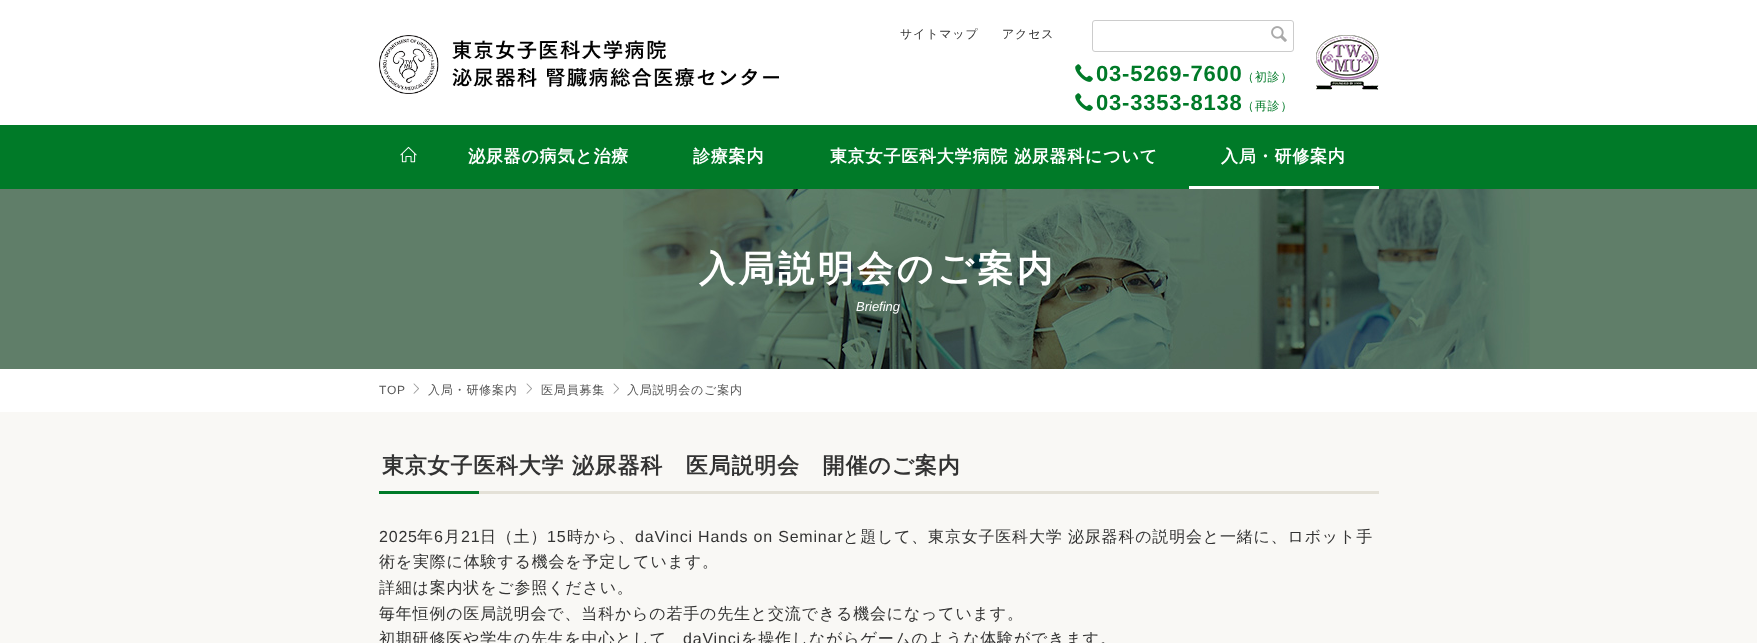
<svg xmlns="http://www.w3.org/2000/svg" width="1757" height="643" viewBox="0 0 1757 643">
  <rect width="100%" height="100%" fill="#f9f8f5"/>
  <path d="M0 0h1757v125H0z" fill="#fff"/>
  <rect x="1092.5" y="20.5" width="201" height="31" rx="2.5" fill="none" stroke="#ccc"/>
  <image x="1271" y="26" width="16" height="16" href="img/1.png"/>
  <image x="379" y="35" width="400" height="59" href="img/2.png"/>
  <image x="1075" y="64" width="18" height="18" href="img/3.png"/>
  <image x="1075" y="93" width="18" height="18" href="img/3.png"/>
  <image x="1316" y="35" width="63" height="55" href="img/4.png"/>
  <path d="M0 125h1757v64H0z" fill="#007a28"/>
  <image x="400" y="146" width="17" height="17" href="img/5.png"/>
  <path d="M1189 186h190v3H1189z" fill="#fff"/>
  <path d="M0 189h1757v180H0z" fill="#607e69"/>
  <image x="623" y="189" width="907" height="180" href="img/6.png"/>
  <path d="M0 369h1757v43H0z" fill="#fff"/>
  <image x="413" y="383" width="6" height="11" href="img/7.png"/>
  <image x="526" y="383" width="6" height="11" href="img/7.png"/>
  <image x="613" y="383" width="6" height="11" href="img/7.png"/>
  <path d="M479 491h900v3H479z" fill="#e4e1d7"/>
  <path d="M379 491h100v3H379z" fill="#007a28"/>
  <g font-family="WenQuanYi Zen Hei" font-size="12" font-weight="500" letter-spacing="0.8" fill="#333">
    <text x="900" y="38">サイトマップ</text>
    <text x="1002" y="38">アクセス</text>
  </g>
  <text x="1096" y="81" font-family="Liberation Sans" font-size="22" font-weight="bold" letter-spacing="0.8" fill="#007a28">03-5269-7600</text>
  <text x="1242" y="81" font-family="WenQuanYi Zen Hei" font-size="12" font-weight="500" letter-spacing="0.8" fill="#007a28">（初診）</text>
  <text x="1096" y="110" font-family="Liberation Sans" font-size="22" font-weight="bold" letter-spacing="0.8" fill="#007a28">03-3353-8138</text>
  <text x="1242" y="110" font-family="WenQuanYi Zen Hei" font-size="12" font-weight="500" letter-spacing="0.8" fill="#007a28">（再診）</text>
  <g font-family="WenQuanYi Zen Hei" font-size="17" font-weight="bold" letter-spacing="0.8" fill="#fff">
    <text x="468" y="162">泌尿器の病気と治療</text>
    <text x="693" y="162">診療案内</text>
    <text x="830" y="162">東京女子医科大学病院 泌尿器科について</text>
    <text x="1221" y="162">入局・研修案内</text>
  </g>
  <text x="699" y="281" font-family="WenQuanYi Zen Hei" font-size="36" font-weight="bold" letter-spacing="3.5" fill="#fff">入局説明会のご案内</text>
  <text x="856" y="311" font-family="Liberation Sans" font-size="13" font-style="italic" fill="#fff">Briefing</text>
  <text x="379" y="394" font-family="Liberation Sans" font-size="12" letter-spacing="0.8" fill="#555">TOP</text>
  <g font-family="WenQuanYi Zen Hei" font-size="12" font-weight="500" letter-spacing="0.8" fill="#555">
    <text x="428" y="394">入局・研修案内</text>
    <text x="541" y="394">医局員募集</text>
    <text x="627" y="394">入局説明会のご案内</text>
  </g>
  <text x="382" y="473" font-family="WenQuanYi Zen Hei" font-size="22" font-weight="bold" letter-spacing="0.8" fill="#333">東京女子医科大学 泌尿器科　医局説明会　開催のご案内</text>
  <text x="379" y="542" font-family="Liberation Sans" font-size="16" letter-spacing="0.8" fill="#333">2025</text>
  <text x="417" y="542" font-family="WenQuanYi Zen Hei" font-size="16" font-weight="500" letter-spacing="0.8" fill="#333">年</text>
  <text x="434" y="542" font-family="Liberation Sans" font-size="16" letter-spacing="0.8" fill="#333">6</text>
  <text x="444" y="542" font-family="WenQuanYi Zen Hei" font-size="16" font-weight="500" letter-spacing="0.8" fill="#333">月</text>
  <text x="461" y="542" font-family="Liberation Sans" font-size="16" letter-spacing="0.8" fill="#333">21</text>
  <text x="480" y="542" font-family="WenQuanYi Zen Hei" font-size="16" font-weight="500" letter-spacing="0.8" fill="#333">日（土）</text>
  <text x="547" y="542" font-family="Liberation Sans" font-size="16" letter-spacing="0.8" fill="#333">15</text>
  <text x="567" y="542" font-family="WenQuanYi Zen Hei" font-size="16" font-weight="500" letter-spacing="0.8" fill="#333">時から、</text>
  <text x="635" y="542" font-family="Liberation Sans" font-size="16" letter-spacing="0.8" fill="#333">daVinci Hands on Seminar</text>
  <g font-family="WenQuanYi Zen Hei" font-size="16" font-weight="500" letter-spacing="0.8" fill="#333">
    <text x="843" y="542">と題して、東京女子医科大学</text>
    <text x="1068" y="542">泌尿器科の説明会と一緒に、ロボット手</text>
    <text x="379" y="567">術を実際に体験する機会を予定しています。</text>
    <text x="379" y="593">詳細は案内状をご参照ください。</text>
    <text x="379" y="619">毎年恒例の医局説明会で、当科からの若手の先生と交流できる機会になっています。</text>
    <text x="379" y="644">初期研修医や学生の先生を中心として</text>
  </g>
  <text x="683" y="644" font-family="Liberation Sans" font-size="16" letter-spacing="0.8" fill="#333">daVinci</text>
  <text x="741" y="644" font-family="WenQuanYi Zen Hei" font-size="16" font-weight="500" letter-spacing="0.8" fill="#333">を操作しながらゲームのような体験ができます。</text>
</svg>
